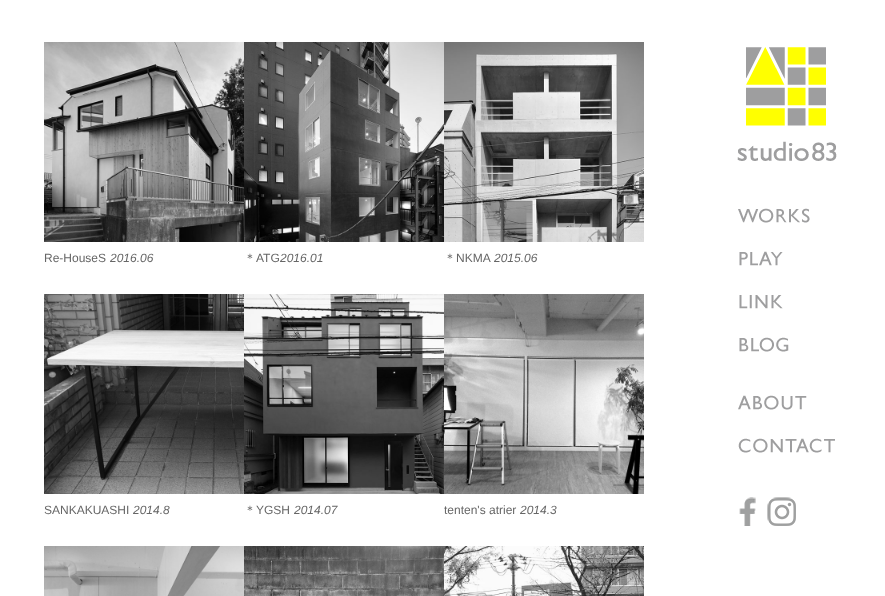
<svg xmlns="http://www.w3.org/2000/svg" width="885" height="596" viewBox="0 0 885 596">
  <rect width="100%" height="100%" fill="#fff"/>
  <image x="44" y="42" width="200" height="200" href="img/1.png"/>
  <image x="244" y="42" width="200" height="200" href="img/2.png"/>
  <image x="444" y="42" width="200" height="200" href="img/3.png"/>
  <image x="44" y="294" width="200" height="200" href="img/4.png"/>
  <image x="244" y="294" width="200" height="200" href="img/5.png"/>
  <image x="444" y="294" width="200" height="200" href="img/6.png"/>
  <image x="44" y="546" width="200" height="50" href="img/7.png"/>
  <image x="244" y="546" width="200" height="50" href="img/8.png"/>
  <image x="444" y="546" width="200" height="50" href="img/9.png"/>
  <image x="737" y="47" width="100" height="114" href="img/10.png"/>
  <image x="738" y="208" width="72" height="15" href="img/11.png"/>
  <image x="739" y="251" width="44" height="15" href="img/12.png"/>
  <image x="739" y="295" width="44" height="14" href="img/13.png"/>
  <image x="739" y="337" width="50" height="15" href="img/14.png"/>
  <image x="738" y="395" width="69" height="15" href="img/15.png"/>
  <image x="738" y="438" width="97" height="15" href="img/16.png"/>
  <image x="739" y="497" width="17" height="29" href="img/17.png"/>
  <image x="767" y="497" width="29" height="29" href="img/18.png"/>
  <text x="44" y="262" font-family="Liberation Sans" font-size="12" fill="#666">Re-HouseS</text>
  <text x="110" y="262" font-family="Liberation Sans" font-size="12" font-style="italic" fill="#666">2016.06</text>
  <text x="244" y="262" font-family="WenQuanYi Zen Hei" font-size="12" font-weight="500" fill="#666">＊</text>
  <text x="256" y="262" font-family="Liberation Sans" font-size="12" fill="#666">ATG</text>
  <text x="280" y="262" font-family="Liberation Sans" font-size="12" font-style="italic" fill="#666">2016.01</text>
  <text x="444" y="262" font-family="WenQuanYi Zen Hei" font-size="12" font-weight="500" fill="#666">＊</text>
  <text x="456" y="262" font-family="Liberation Sans" font-size="12" fill="#666">NKMA</text>
  <text x="494" y="262" font-family="Liberation Sans" font-size="12" font-style="italic" fill="#666">2015.06</text>
  <text x="44" y="514" font-family="Liberation Sans" font-size="12" fill="#666">SANKAKUASHI</text>
  <text x="133" y="514" font-family="Liberation Sans" font-size="12" font-style="italic" fill="#666">2014.8</text>
  <text x="244" y="514" font-family="WenQuanYi Zen Hei" font-size="12" font-weight="500" fill="#666">＊</text>
  <text x="256" y="514" font-family="Liberation Sans" font-size="12" fill="#666">YGSH</text>
  <text x="294" y="514" font-family="Liberation Sans" font-size="12" font-style="italic" fill="#666">2014.07</text>
  <text x="444" y="514" font-family="Liberation Sans" font-size="12" fill="#666">tenten's atrier</text>
  <text x="520" y="514" font-family="Liberation Sans" font-size="12" font-style="italic" fill="#666">2014.3</text>
  <g font-family="Liberation Serif" font-size="12" fill="#666">
    <text x="449" y="582">i</text>
    <text x="464" y="582">3</text>
  </g>
</svg>
